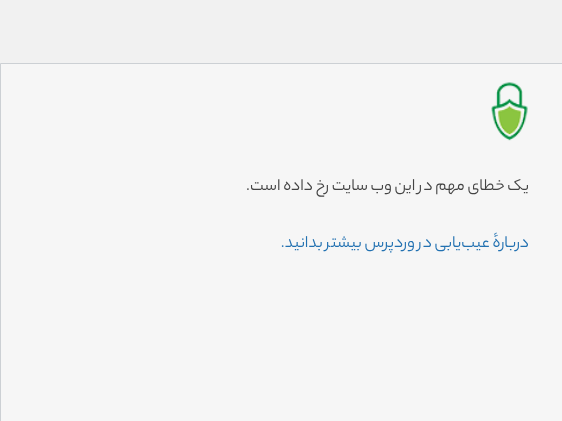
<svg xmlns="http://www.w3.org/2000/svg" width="562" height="421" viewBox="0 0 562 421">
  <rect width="100%" height="100%" fill="#f1f1f1"/>
  <path d="M0.5 63.5h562v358H0.5z" fill="#f6f6f6" stroke="#ccd0d4"/>
  <image x="491" y="82" width="37" height="59" href="img/1.png"/>
  <text x="529" y="190" font-family="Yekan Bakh" font-size="17.5" direction="rtl" fill="#444">یک خطای مهم در این وب سایت رخ داده است.</text>
  <text x="529" y="247" font-family="Yekan Bakh" font-size="17.5" direction="rtl" fill="#2271b1">دربارهٔ عیب‌یابی در وردپرس بیشتر بدانید.</text>
</svg>
